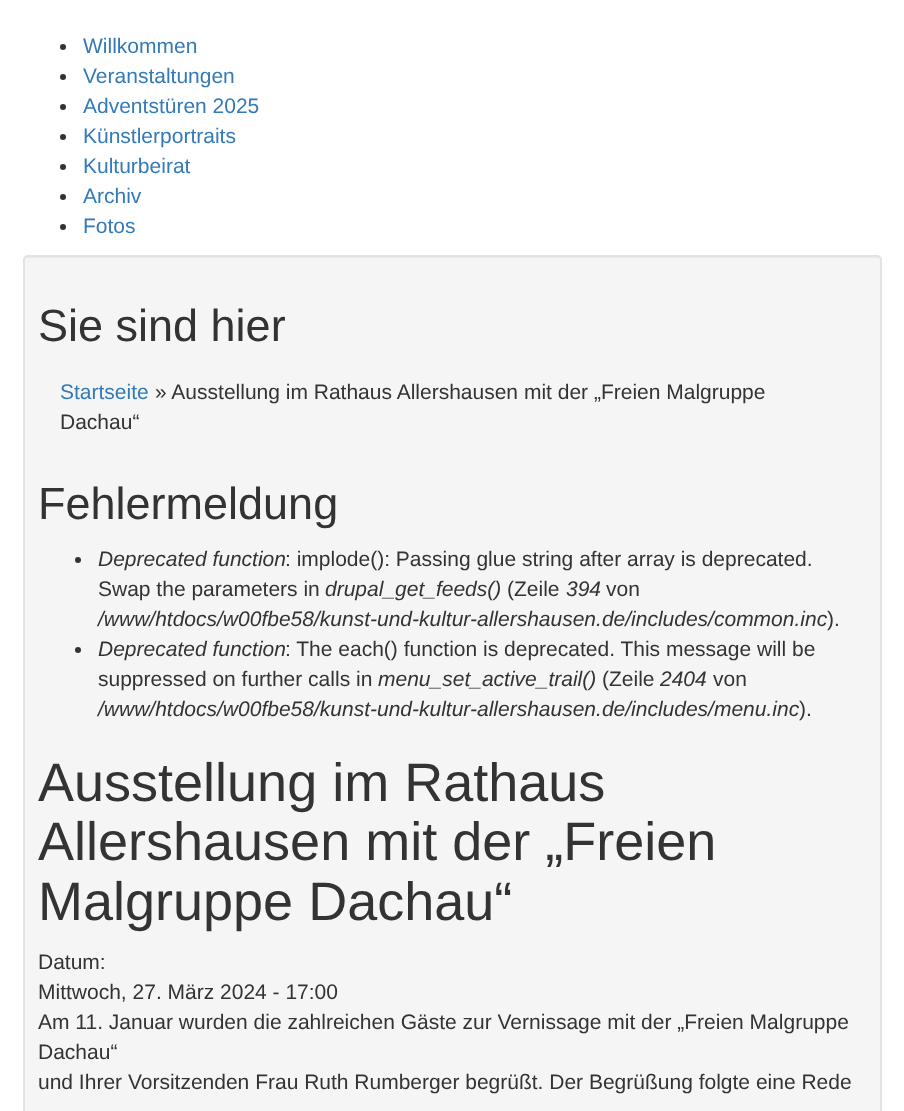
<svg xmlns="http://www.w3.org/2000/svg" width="904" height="1111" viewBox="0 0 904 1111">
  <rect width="100%" height="100%" fill="#fff"/>
  <circle cx="63" cy="47" r="3" fill="#333"/>
  <circle cx="63" cy="77" r="3" fill="#333"/>
  <circle cx="63" cy="107" r="3" fill="#333"/>
  <circle cx="63" cy="137" r="3" fill="#333"/>
  <circle cx="63" cy="167" r="3" fill="#333"/>
  <circle cx="63" cy="197" r="3" fill="#333"/>
  <circle cx="63" cy="227" r="3" fill="#333"/>
  <rect x="23" y="255" width="859" height="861" rx="5" fill="#f5f5f5"/>
  <path d="M27 258H878C879 258 880 259 880 261V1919C881 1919 881 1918 881 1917V260C881 258 880 257 878 257H27C25 257 24 258 24 260V261C24 259 25 258 27 258Z" fill="#e9e9e9"/>
  <rect x="24" y="256" width="857" height="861" rx="4" fill="none" stroke="#e3e3e3" stroke-width="2"/>
  <circle cx="78" cy="560" r="3" fill="#333"/>
  <circle cx="78" cy="650" r="3" fill="#333"/>
  <g font-family="Liberation Sans" font-size="21" fill="#337ab7">
    <text x="83" y="53">Willkommen</text>
    <text x="83" y="83">Veranstaltungen</text>
    <text x="83" y="113">Adventstüren 2025</text>
    <text x="83" y="143">Künstlerportraits</text>
    <text x="83" y="173">Kulturbeirat</text>
    <text x="83" y="203">Archiv</text>
    <text x="83" y="233">Fotos</text>
  </g>
  <text x="38" y="341" font-family="Liberation Sans" font-size="45" fill="#333">Sie sind hier</text>
  <text x="60" y="399" font-family="Liberation Sans" font-size="21" fill="#337ab7">Startseite</text>
  <g font-family="Liberation Sans" font-size="21" fill="#333">
    <text x="155" y="399">» Ausstellung im Rathaus Allershausen mit der „Freien Malgruppe</text>
    <text x="60" y="429">Dachau“</text>
  </g>
  <text x="38" y="519" font-family="Liberation Sans" font-size="45" fill="#333">Fehlermeldung</text>
  <text x="98" y="566" font-family="Liberation Sans" font-size="21" font-style="italic" fill="#333">Deprecated function</text>
  <g font-family="Liberation Sans" font-size="21" fill="#333">
    <text x="285" y="566">: implode(): Passing glue string after array is deprecated.</text>
    <text x="98" y="596">Swap the parameters in</text>
  </g>
  <text x="325" y="596" font-family="Liberation Sans" font-size="21" font-style="italic" fill="#333">drupal_get_feeds()</text>
  <text x="507" y="596" font-family="Liberation Sans" font-size="21" fill="#333">(Zeile</text>
  <text x="566" y="596" font-family="Liberation Sans" font-size="21" font-style="italic" fill="#333">394</text>
  <text x="606" y="596" font-family="Liberation Sans" font-size="21" fill="#333">von</text>
  <text x="98" y="626" font-family="Liberation Sans" font-size="21" font-style="italic" fill="#333">/www/htdocs/w00fbe58/kunst-und-kultur-allershausen.de/includes/common.inc</text>
  <text x="827" y="626" font-family="Liberation Sans" font-size="21" fill="#333">).</text>
  <text x="98" y="656" font-family="Liberation Sans" font-size="21" font-style="italic" fill="#333">Deprecated function</text>
  <g font-family="Liberation Sans" font-size="21" fill="#333">
    <text x="285" y="656">: The each() function is deprecated. This message will be</text>
    <text x="98" y="686">suppressed on further calls in</text>
  </g>
  <text x="378" y="686" font-family="Liberation Sans" font-size="21" font-style="italic" fill="#333">menu_set_active_trail()</text>
  <text x="602" y="686" font-family="Liberation Sans" font-size="21" fill="#333">(Zeile</text>
  <text x="660" y="686" font-family="Liberation Sans" font-size="21" font-style="italic" fill="#333">2404</text>
  <text x="713" y="686" font-family="Liberation Sans" font-size="21" fill="#333">von</text>
  <text x="98" y="716" font-family="Liberation Sans" font-size="21" font-style="italic" fill="#333">/www/htdocs/w00fbe58/kunst-und-kultur-allershausen.de/includes/menu.inc</text>
  <text x="799" y="716" font-family="Liberation Sans" font-size="21" fill="#333">).</text>
  <g font-family="Liberation Sans" font-size="54" fill="#333">
    <text x="38" y="801">Ausstellung im Rathaus</text>
    <text x="38" y="860">Allershausen mit der „Freien</text>
    <text x="38" y="920">Malgruppe Dachau“</text>
  </g>
  <g font-family="Liberation Sans" font-size="21" fill="#333">
    <text x="38" y="969">Datum:</text>
    <text x="38" y="999">Mittwoch, 27. März 2024 - 17:00</text>
    <text x="38" y="1029">Am 11. Januar wurden die zahlreichen Gäste zur Vernissage mit der „Freien Malgruppe</text>
    <text x="38" y="1059">Dachau“</text>
    <text x="38" y="1089">und Ihrer Vorsitzenden Frau Ruth Rumberger begrüßt. Der Begrüßung folgte eine Rede</text>
  </g>
</svg>
